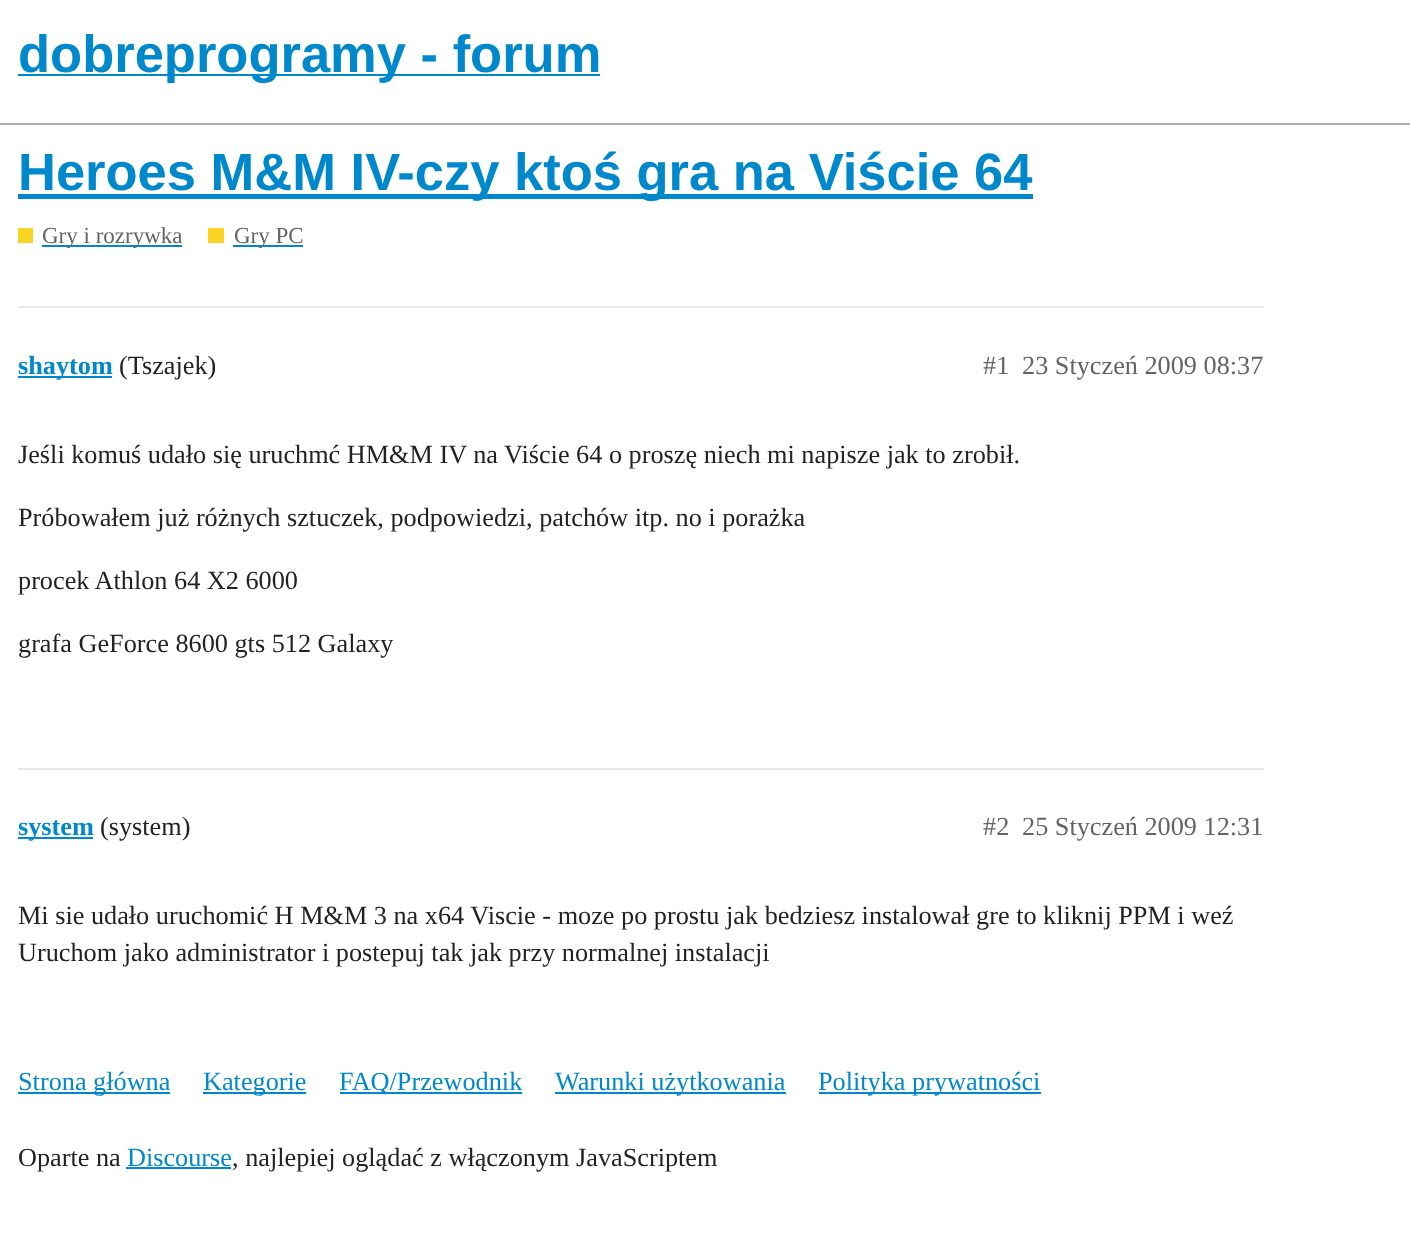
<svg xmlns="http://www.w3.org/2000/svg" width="1410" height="1253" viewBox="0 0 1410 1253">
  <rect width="100%" height="100%" fill="#fff"/>
  <path d="M0 123h1410v2H0z" fill="#afafaf"/>
  <path d="M18 74h582v2H18z" fill="#08c"/>
  <path d="M18 194h1015v5H18z" fill="#08c"/>
  <path d="M18 228h15v15H18z" fill="#f9d423"/>
  <path d="M42 245h140v2H42z" fill="#08c"/>
  <path d="M208 228h16v15H208z" fill="#f9d423"/>
  <path d="M233 245h70v2H233z" fill="#08c"/>
  <path d="M18 306h1246v2H18z" fill="#e9e9e9"/>
  <path d="M18 376h94v2H18z" fill="#08c"/>
  <path d="M18 768h1246v2H18z" fill="#e9e9e9"/>
  <path d="M18 837h75v2H18z" fill="#08c"/>
  <path d="M18 1092h152v2H18z" fill="#08c"/>
  <path d="M203 1092h103v2H203z" fill="#08c"/>
  <path d="M340 1092h182v2H340z" fill="#08c"/>
  <path d="M555 1092h231v2H555z" fill="#08c"/>
  <path d="M819 1092h222v2H819z" fill="#08c"/>
  <path d="M126 1167h105v2H126z" fill="#08c"/>
  <g font-family="Liberation Sans" font-size="52.5" font-weight="bold" fill="#08c">
    <text x="18" y="72">dobreprogramy - forum</text>
    <text x="18" y="190">Heroes M&amp;M IV-czy ktoś gra na Viście 64</text>
  </g>
  <g font-family="Liberation Serif" font-size="23" fill="#646464">
    <text x="42" y="243">Gry i rozrywka</text>
    <text x="234" y="243">Gry PC</text>
  </g>
  <text x="18" y="374" font-family="Liberation Serif" font-size="26.25" font-weight="bold" fill="#08c">shaytom</text>
  <text x="119" y="374" font-family="Liberation Serif" font-size="26.25" fill="#222">(Tszajek)</text>
  <g font-family="Liberation Serif" font-size="26.25" fill="#646464">
    <text x="983" y="374">#1</text>
    <text x="1022" y="374">23 Styczeń 2009 08:37</text>
  </g>
  <g font-family="Liberation Serif" font-size="26.25" fill="#222">
    <text x="18" y="463">Jeśli komuś udało się uruchmć HM&amp;M IV na Viście 64 o proszę niech mi napisze jak to zrobił.</text>
    <text x="18" y="526">Próbowałem już różnych sztuczek, podpowiedzi, patchów itp. no i porażka</text>
    <text x="18" y="589">procek Athlon 64 X2 6000</text>
    <text x="18" y="652">grafa GeForce 8600 gts 512 Galaxy</text>
  </g>
  <text x="18" y="835" font-family="Liberation Serif" font-size="26.25" font-weight="bold" fill="#08c">system</text>
  <text x="100" y="835" font-family="Liberation Serif" font-size="26.25" fill="#222">(system)</text>
  <g font-family="Liberation Serif" font-size="26.25" fill="#646464">
    <text x="983" y="835">#2</text>
    <text x="1022" y="835">25 Styczeń 2009 12:31</text>
  </g>
  <g font-family="Liberation Serif" font-size="26.25" fill="#222">
    <text x="18" y="924">Mi sie udało uruchomić H M&amp;M 3 na x64 Viscie - moze po prostu jak bedziesz instalował gre to kliknij PPM i weź</text>
    <text x="18" y="961">Uruchom jako administrator i postepuj tak jak przy normalnej instalacji</text>
  </g>
  <g font-family="Liberation Serif" font-size="26.25" fill="#08c">
    <text x="18" y="1090">Strona główna</text>
    <text x="203" y="1090">Kategorie</text>
    <text x="339" y="1090">FAQ/Przewodnik</text>
    <text x="555" y="1090">Warunki użytkowania</text>
    <text x="818" y="1090">Polityka prywatności</text>
  </g>
  <text x="18" y="1166" font-family="Liberation Serif" font-size="26.25" fill="#222">Oparte na</text>
  <text x="127" y="1166" font-family="Liberation Serif" font-size="26.25" fill="#08c">Discourse</text>
  <text x="232" y="1166" font-family="Liberation Serif" font-size="26.25" fill="#222">, najlepiej oglądać z włączonym JavaScriptem</text>
</svg>
